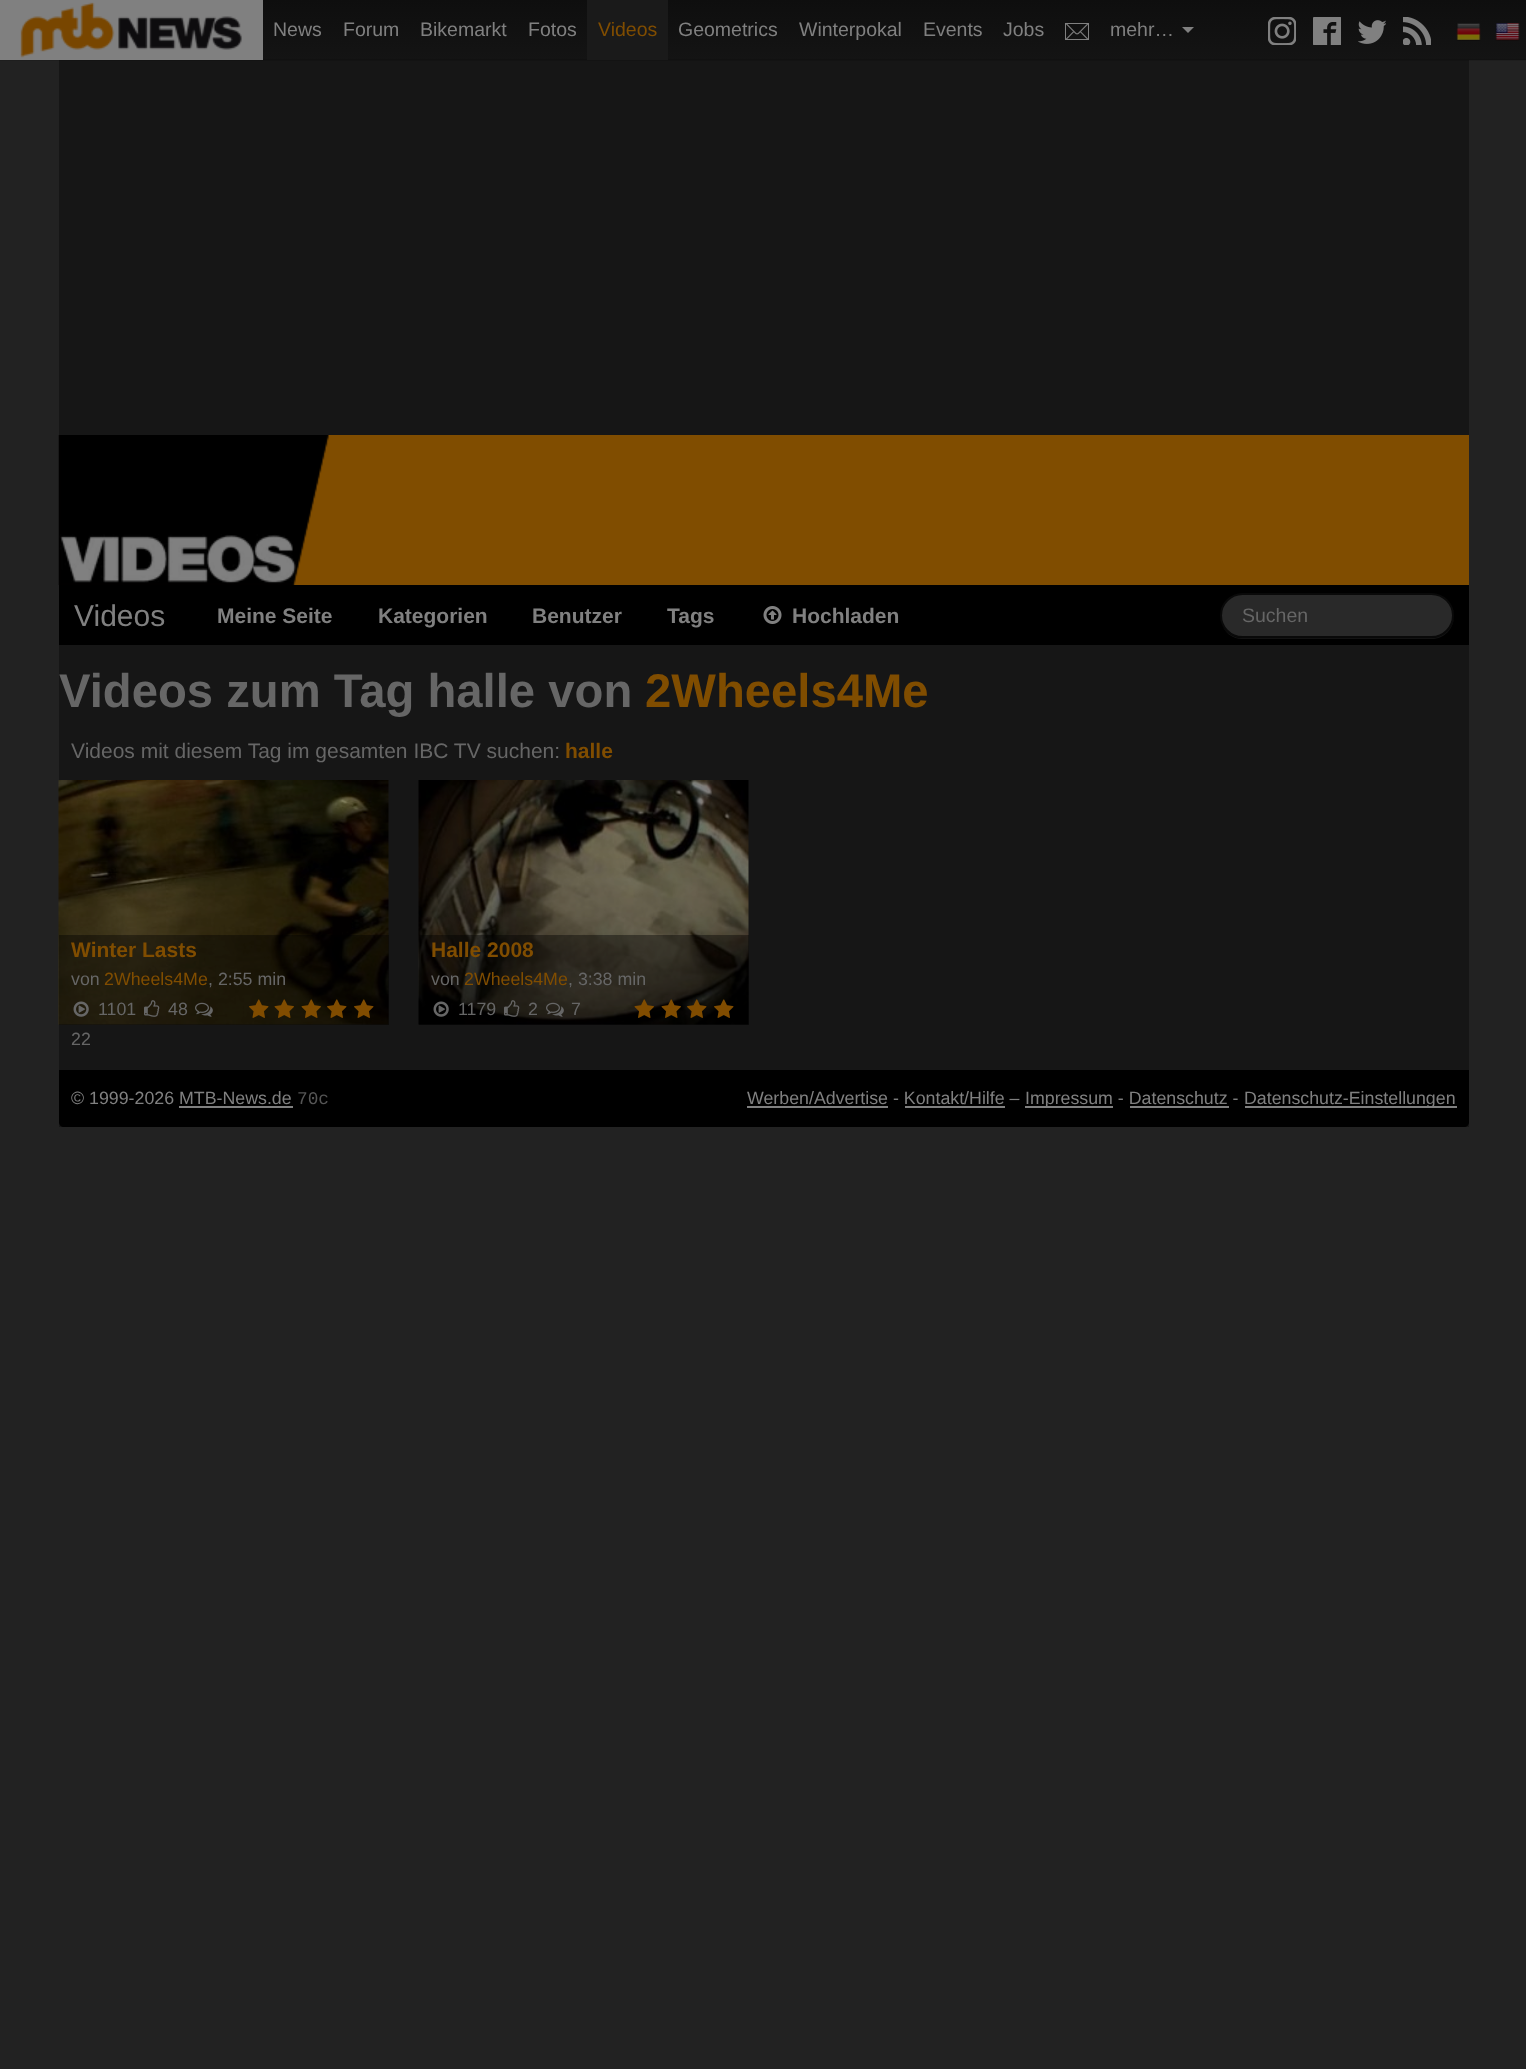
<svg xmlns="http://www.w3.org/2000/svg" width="1526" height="2069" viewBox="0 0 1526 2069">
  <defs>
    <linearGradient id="g1" gradientUnits="userSpaceOnUse" x1="764" y1="0" x2="764" y2="60"><stop offset="0" stop-color="#0e0e0e"/><stop offset="1" stop-color="#141414"/></linearGradient>
  </defs>
  <rect width="100%" height="100%" fill="#222"/>
  <path d="M263 0h1263v60H263z" fill="url(#g1)"/>
  <path d="M59 60h1410v1067H59z" fill="#161616"/>
  <path d="M0 59h1526v2H0z" fill="#0000001a"/>
  <path d="M0 0h263v60H0z" fill="#808080"/>
  <image x="20" y="2" width="222" height="56" href="img/1.png"/>
  <path d="M587 0h81v60H587z" fill="#1a1a1a"/>
  <image x="1065" y="23" width="24" height="17" href="img/2.png"/>
  <path d="M1182 27H1194L1188 33Z" fill="#808080"/>
  <image x="1268" y="17" width="28" height="28" href="img/3.png"/>
  <image x="1313" y="17" width="28" height="28" href="img/4.png"/>
  <image x="1358" y="20" width="28" height="24" href="img/5.png"/>
  <image x="1403" y="17" width="28" height="28" href="img/6.png"/>
  <image x="1456" y="23" width="25" height="18" href="img/7.png"/>
  <image x="1495" y="23" width="25" height="18" href="img/8.png"/>
  <path d="M59 435h1410v150H59z" fill="#804d00"/>
  <image x="58" y="435" width="271" height="150" href="img/9.png"/>
  <path d="M59 585h1410v60H59z" fill="#000"/>
  <image x="763" y="606" width="19" height="18" href="img/10.png"/>
  <path d="M1221 623C1224 632 1232 639 1242 639H1432C1444 639 1454 629 1454 616C1454 614 1454 611 1453 609L1454 615C1454 627 1443 638 1431 638H1242C1232 638 1224 631 1221 623Z" fill="#131313"/>
  <rect x="1221" y="594" width="232" height="43" rx="21.5" fill="#292929" stroke="#090909" stroke-width="2"/>
  <image x="58" y="780" width="331" height="245" href="img/11.png"/>
  <path d="M59 935h330v90H59z" fill="#00000066"/>
  <image x="73" y="1001" width="16" height="16" href="img/12.png"/>
  <image x="144" y="1000" width="16" height="17" href="img/13.png"/>
  <image x="195" y="1002" width="18" height="15" href="img/14.png"/>
  <image x="249" y="999" width="20" height="19" href="img/15.png"/>
  <image x="274" y="999" width="20" height="19" href="img/16.png"/>
  <image x="301" y="999" width="20" height="19" href="img/17.png"/>
  <image x="327" y="999" width="20" height="19" href="img/18.png"/>
  <image x="354" y="999" width="20" height="19" href="img/19.png"/>
  <image x="418" y="780" width="331" height="245" href="img/20.png"/>
  <path d="M419 935h330v90H419z" fill="#00000066"/>
  <image x="433" y="1001" width="16" height="16" href="img/21.png"/>
  <image x="504" y="1000" width="16" height="17" href="img/22.png"/>
  <image x="546" y="1002" width="18" height="15" href="img/23.png"/>
  <image x="634" y="999" width="20" height="19" href="img/24.png"/>
  <image x="661" y="999" width="20" height="19" href="img/25.png"/>
  <image x="687" y="999" width="20" height="19" href="img/26.png"/>
  <image x="714" y="999" width="20" height="19" href="img/27.png"/>
  <path d="M59 1070H1469V1122C1469 1125 1467 1127 1464 1127H64C61 1127 59 1125 59 1122Z" fill="#000"/>
  <path d="M179 1106h114v2H179z" fill="#808080"/>
  <path d="M747 1106h141v2H747z" fill="#808080"/>
  <path d="M1025 1106h88v2H1025z" fill="#808080"/>
  <path d="M1245 1106h212v2H1245z" fill="#808080"/>
  <path d="M905 1106h100v2H905z" fill="#808080"/>
  <path d="M1130 1106h99v2H1130z" fill="#808080"/>
  <g font-family="Liberation Sans" font-size="19.5" fill="#808080">
    <text x="273" y="36">News</text>
    <text x="343" y="36">Forum</text>
    <text x="420" y="36">Bikemarkt</text>
    <text x="528" y="36">Fotos</text>
  </g>
  <text x="598" y="36" font-family="Liberation Sans" font-size="19.5" fill="#804d00">Videos</text>
  <g font-family="Liberation Sans" font-size="19.5" fill="#808080">
    <text x="678" y="36">Geometrics</text>
    <text x="799" y="36">Winterpokal</text>
    <text x="923" y="36">Events</text>
    <text x="1003" y="36">Jobs</text>
    <text x="1110" y="36">mehr…</text>
  </g>
  <text x="74" y="626" font-family="Liberation Sans" font-size="30" fill="#808080">Videos</text>
  <g font-family="Liberation Sans" font-size="21" font-weight="bold" fill="#808080">
    <text x="217" y="623">Meine Seite</text>
    <text x="378" y="623">Kategorien</text>
    <text x="532" y="623">Benutzer</text>
    <text x="667" y="623">Tags</text>
    <text x="792" y="623">Hochladen</text>
  </g>
  <text x="1242" y="622" font-family="Liberation Sans" font-size="19.5" fill="#666">Suchen</text>
  <text x="59" y="707" font-family="Liberation Sans" font-size="47.25" font-weight="bold" fill="#666">Videos zum Tag halle von</text>
  <text x="645" y="707" font-family="Liberation Sans" font-size="47.25" font-weight="bold" fill="#804d00">2Wheels4Me</text>
  <text x="71" y="758" font-family="Liberation Sans" font-size="21" fill="#666">Videos mit diesem Tag im gesamten IBC TV suchen:</text>
  <g font-family="Liberation Sans" font-size="21" font-weight="bold" fill="#804d00">
    <text x="565" y="758">halle</text>
    <text x="71" y="957">Winter Lasts</text>
  </g>
  <text x="71" y="985" font-family="Liberation Sans" font-size="17.8" fill="#666">von</text>
  <text x="104" y="985" font-family="Liberation Sans" font-size="17.8" fill="#804d00">2Wheels4Me</text>
  <g font-family="Liberation Sans" font-size="17.8" fill="#666">
    <text x="208" y="985">, 2:55 min</text>
    <text x="98" y="1015">1101</text>
    <text x="168" y="1015">48</text>
    <text x="71" y="1045">22</text>
  </g>
  <text x="431" y="957" font-family="Liberation Sans" font-size="21" font-weight="bold" fill="#804d00">Halle 2008</text>
  <text x="431" y="985" font-family="Liberation Sans" font-size="17.8" fill="#666">von</text>
  <text x="464" y="985" font-family="Liberation Sans" font-size="17.8" fill="#804d00">2Wheels4Me</text>
  <g font-family="Liberation Sans" font-size="17.8" fill="#666">
    <text x="568" y="985">, 3:38 min</text>
    <text x="458" y="1015">1179</text>
    <text x="528" y="1015">2</text>
    <text x="571" y="1015">7</text>
  </g>
  <text x="71" y="1104" font-family="Liberation Sans" font-size="17.8" fill="#808080">© 1999-2026 MTB-News.de</text>
  <text x="297" y="1104" font-family="Liberation Mono" font-size="17.8" fill="#555">70c</text>
  <g font-family="Liberation Sans" font-size="17.8" fill="#808080">
    <text x="747" y="1104">Werben/Advertise - Kontakt/Hilfe –</text>
    <text x="1025" y="1104">Impressum - Datenschutz -</text>
    <text x="1244" y="1104">Datenschutz-Einstellungen</text>
  </g>
</svg>
